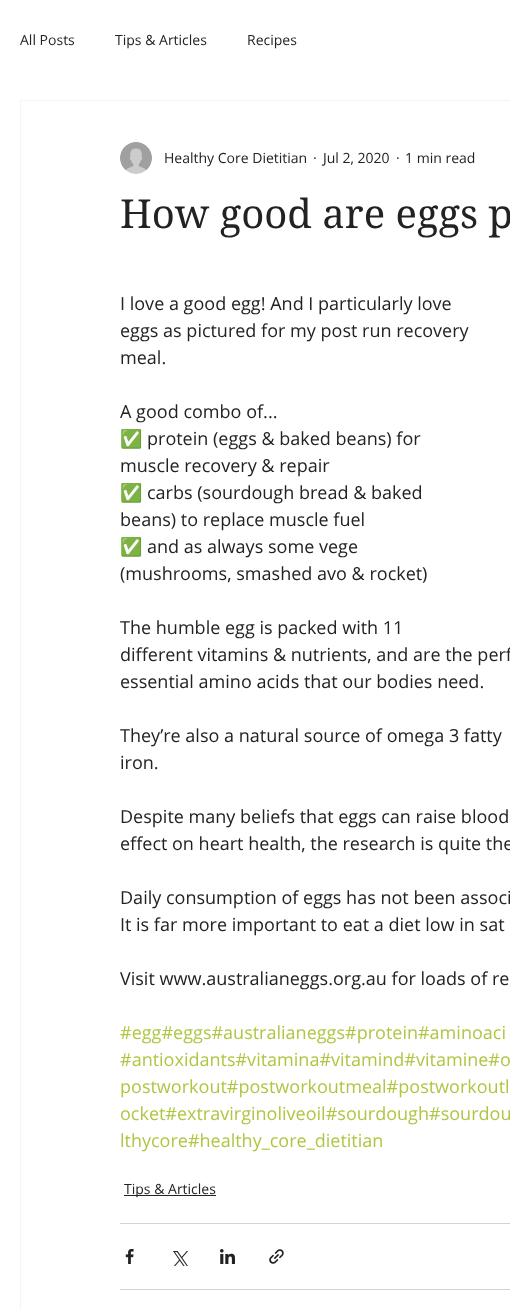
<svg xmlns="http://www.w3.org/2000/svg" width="510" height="1310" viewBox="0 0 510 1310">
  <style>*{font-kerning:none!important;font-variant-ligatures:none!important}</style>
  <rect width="100%" height="100%" fill="#fff"/>
  <path d="M20.5 100.5h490v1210H20.5z" fill="none" stroke="#f4f4f4"/>
  <image x="120" y="142" width="32" height="32" href="img/1.png"/>
  <path d="M124 1195h92v1H124z" fill="#222"/>
  <path d="M120 1223h390v1H120z" fill="#d3d3d3"/>
  <image x="125" y="1249" width="9" height="15" href="img/2.png"/>
  <image x="173" y="1251" width="15" height="15" href="img/3.png"/>
  <image x="220" y="1249" width="15" height="15" href="img/4.png"/>
  <image x="269" y="1249" width="15" height="15" href="img/5.png"/>
  <path d="M120 1289h390v1H120z" fill="#d3d3d3"/>
  <g font-family="Open Sans" font-size="14" fill="#222">
    <text x="20" y="45">All Posts</text>
    <text x="115" y="45">Tips &amp; Articles</text>
    <text x="247" y="45">Recipes</text>
    <text x="164" y="163">Healthy Core Dietitian</text>
    <text x="313" y="163">·</text>
    <text x="323" y="163">Jul 2, 2020</text>
    <text x="396" y="163">·</text>
    <text x="405" y="163">1 min read</text>
  </g>
  <text x="120" y="228" font-family="'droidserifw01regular'" font-size="40" fill="#222">How good are eggs p</text>
  <g font-family="Open Sans" font-size="18" fill="#222">
    <text x="120" y="310">I love a good egg! And I particularly love</text>
    <text x="120" y="337">eggs as pictured for my post run recovery</text>
    <text x="120" y="364">meal.</text>
    <text x="120" y="418">A good combo of...</text>
  </g>
  <text x="120" y="445" font-family="Noto Color Emoji" font-size="18" fill="#222">✅</text>
  <g font-family="Open Sans" font-size="18" fill="#222">
    <text x="147" y="445">protein (eggs &amp; baked beans) for</text>
    <text x="120" y="472">muscle recovery &amp; repair</text>
  </g>
  <text x="120" y="499" font-family="Noto Color Emoji" font-size="18" fill="#222">✅</text>
  <g font-family="Open Sans" font-size="18" fill="#222">
    <text x="147" y="499">carbs (sourdough bread &amp; baked</text>
    <text x="120" y="526">beans) to replace muscle fuel</text>
  </g>
  <text x="120" y="553" font-family="Noto Color Emoji" font-size="18" fill="#222">✅</text>
  <g font-family="Open Sans" font-size="18" fill="#222">
    <text x="147" y="553">and as always some vege</text>
    <text x="120" y="580">(mushrooms, smashed avo &amp; rocket)</text>
    <text x="120" y="634">The humble egg is packed with 11</text>
    <text x="120" y="661">different vitamins &amp; nutrients, and are the perf</text>
    <text x="120" y="688">essential amino acids that our bodies need.</text>
    <text x="120" y="742">They’re also a natural source of omega 3 fatty</text>
    <text x="120" y="769">iron.</text>
    <text x="120" y="823">Despite many beliefs that eggs can raise blood</text>
    <text x="120" y="850">effect on heart health, the research is quite the</text>
    <text x="120" y="904">Daily consumption of eggs has not been associ</text>
    <text x="120" y="931">It is far more important to eat a diet low in sat</text>
    <text x="120" y="985">Visit www.australianeggs.org.au for loads of re</text>
  </g>
  <g font-family="Open Sans" font-size="18" fill="#adc743">
    <text x="120" y="1039">#egg#eggs#australianeggs#protein#aminoaci</text>
    <text x="120" y="1066">#antioxidants#vitamina#vitamind#vitamine#o</text>
    <text x="120" y="1093">postworkout#postworkoutmeal#postworkoutl</text>
    <text x="120" y="1120">ocket#extravirginoliveoil#sourdough#sourdou</text>
    <text x="120" y="1147">lthycore#healthy_core_dietitian</text>
  </g>
  <text x="124" y="1194" font-family="Open Sans" font-size="14" fill="#222">Tips &amp; Articles</text>
</svg>
